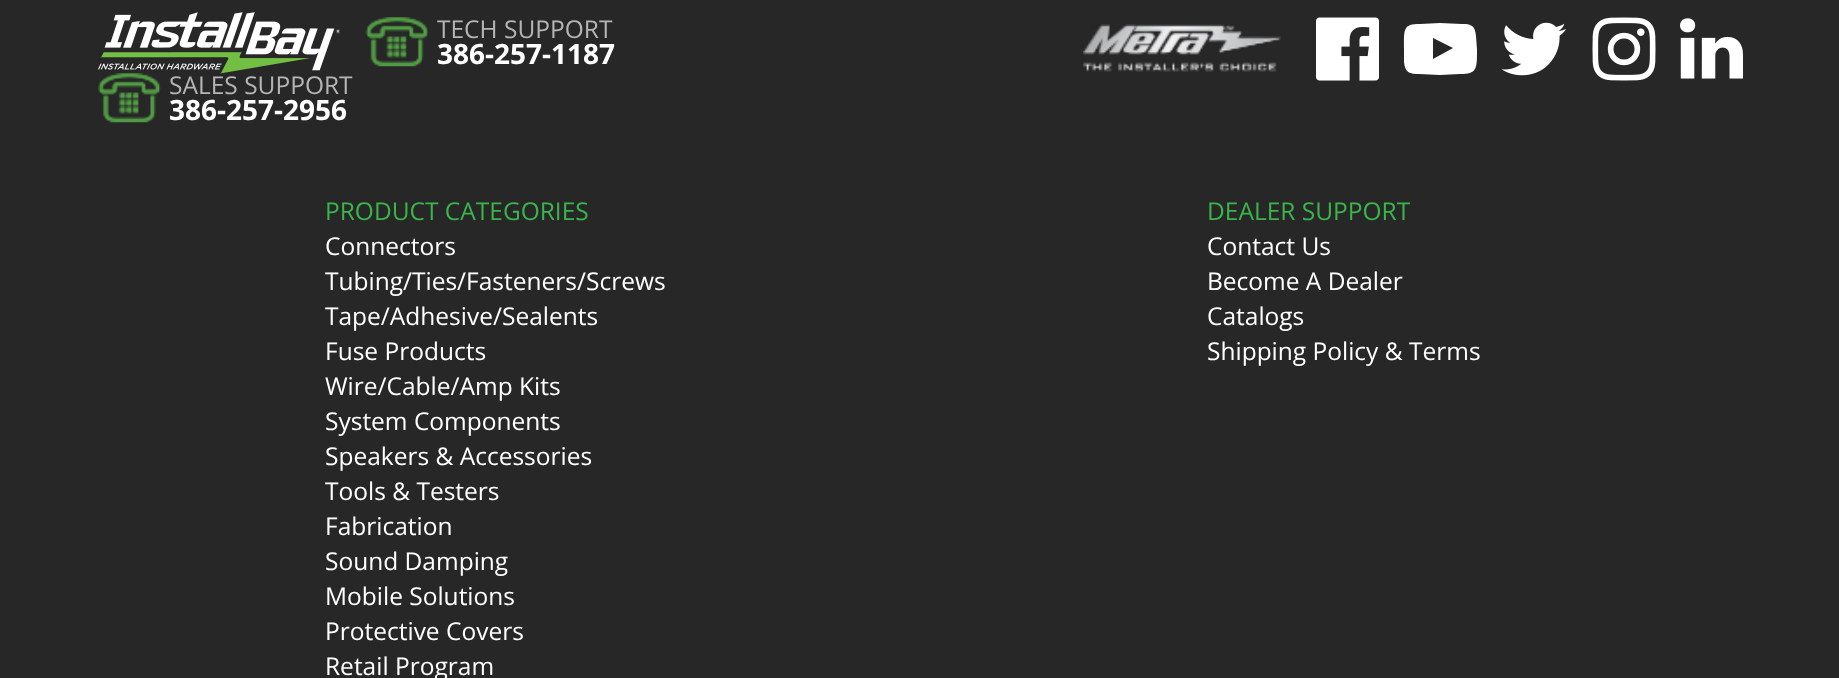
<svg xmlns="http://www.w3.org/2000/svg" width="1839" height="678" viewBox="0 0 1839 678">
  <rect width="100%" height="100%" fill="#272727"/>
  <image x="98" y="73" width="63" height="50" href="img/3.png"/>
  <image x="98" y="12" width="242" height="62" href="img/1.png"/>
  <image x="365" y="17" width="64" height="50" href="img/2.png"/>
  <image x="1083" y="24" width="198" height="48" href="img/4.png"/>
  <image x="1316" y="17" width="63" height="64" href="img/5.png"/>
  <path d="M1433 59L1453 48L1433 38ZM1440 23L1462 24C1471 24 1475 25 1476 36L1477 50C1477 69 1477 74 1460 74L1440 75L1419 74C1410 74 1405 73 1404 62V48C1404 29 1403 24 1420 24Z" fill="#fff"/>
  <image x="1501" y="22" width="65" height="54" href="img/6.png"/>
  <image x="1592" y="17" width="64" height="64" href="img/7.png"/>
  <image x="1680" y="18" width="63" height="61" href="img/8.png"/>
  <text x="437" y="38" font-family="Open Sans" font-size="24.5" fill="#b5b5b5">TECH SUPPORT</text>
  <text x="437" y="64" font-family="Open Sans" font-size="28" font-weight="bold" fill="#fff">386-257-1187</text>
  <text x="169" y="94" font-family="Open Sans" font-size="24.5" fill="#b5b5b5">SALES SUPPORT</text>
  <text x="169" y="120" font-family="Open Sans" font-size="28" font-weight="bold" fill="#fff">386-257-2956</text>
  <text x="325" y="220" font-family="Open Sans" font-size="24.5" fill="#39b54a">PRODUCT CATEGORIES</text>
  <g font-family="Open Sans" font-size="24.5" fill="#fff">
    <text x="325" y="255">Connectors</text>
    <text x="325" y="290">Tubing/Ties/Fasteners/Screws</text>
    <text x="325" y="325">Tape/Adhesive/Sealents</text>
    <text x="325" y="360">Fuse Products</text>
    <text x="325" y="395">Wire/Cable/Amp Kits</text>
    <text x="325" y="430">System Components</text>
    <text x="325" y="465">Speakers &amp; Accessories</text>
    <text x="325" y="500">Tools &amp; Testers</text>
    <text x="325" y="535">Fabrication</text>
    <text x="325" y="570">Sound Damping</text>
    <text x="325" y="605">Mobile Solutions</text>
    <text x="325" y="640">Protective Covers</text>
    <text x="325" y="675">Retail Program</text>
  </g>
  <text x="1207" y="220" font-family="Open Sans" font-size="24.5" fill="#39b54a">DEALER SUPPORT</text>
  <g font-family="Open Sans" font-size="24.5" fill="#fff">
    <text x="1207" y="255">Contact Us</text>
    <text x="1207" y="290">Become A Dealer</text>
    <text x="1207" y="325">Catalogs</text>
    <text x="1207" y="360">Shipping Policy &amp; Terms</text>
  </g>
</svg>
